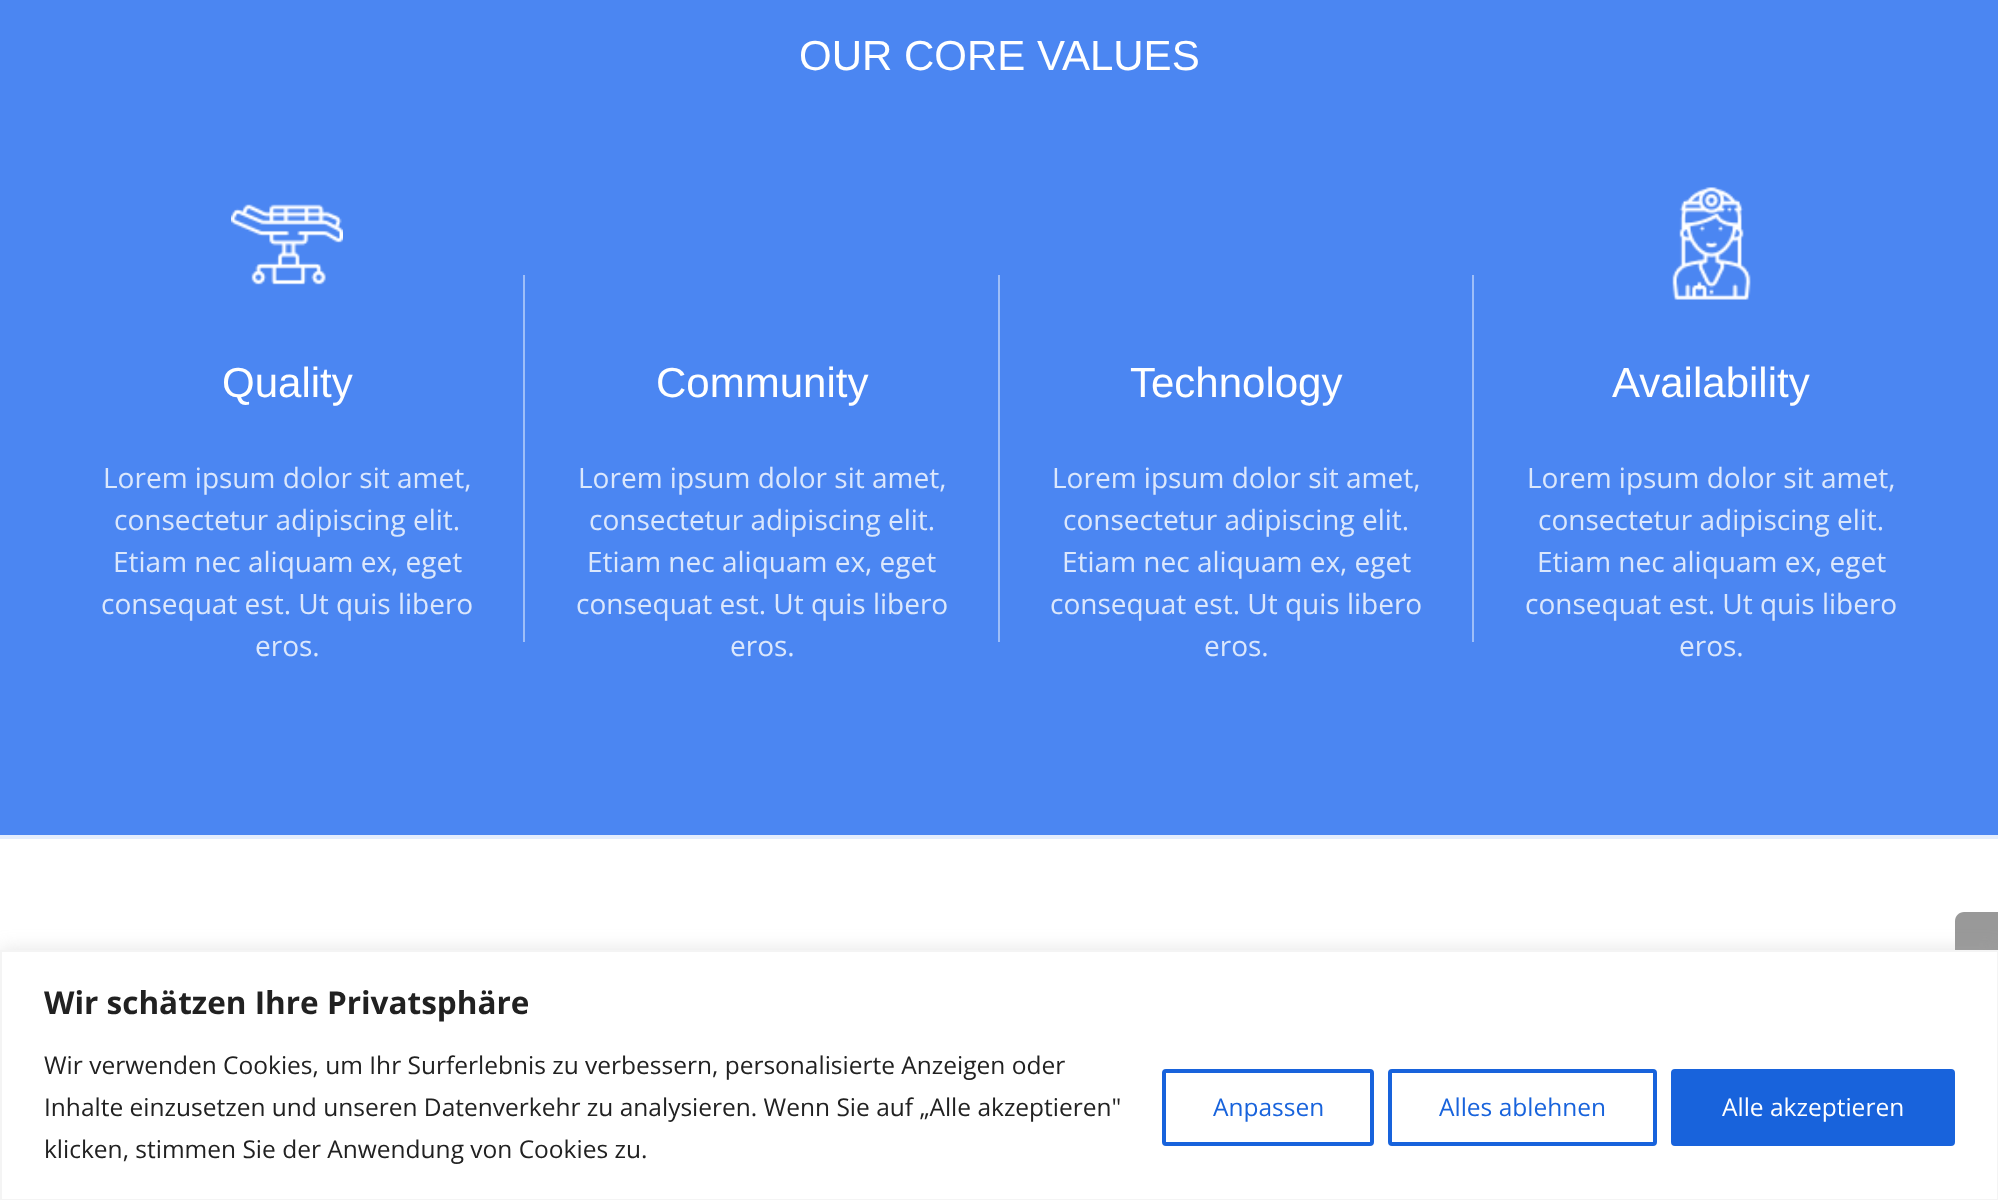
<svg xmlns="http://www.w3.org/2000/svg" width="1998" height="1200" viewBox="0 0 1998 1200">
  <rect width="100%" height="100%" fill="#fff"/>
  <path d="M0 0h1998v835H0z" fill="#4b86f2"/>
  <image x="231" y="204" width="112" height="81" href="img/1.png"/>
  <path d="M523 275h2v367H523z" fill="#9ebef8"/>
  <path d="M998 275h2v367H998z" fill="#9ebef8"/>
  <path d="M1472 275h2v367H1472z" fill="#9ebef8"/>
  <image x="1672" y="187" width="79" height="113" href="img/2.png"/>
  <path d="M0 835h1998v4H0z" fill="#e4edfd"/>
  <path d="M1964 912H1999V982H1964C1959 982 1955 978 1955 973V921C1955 916 1959 912 1964 912Z" fill="#999"/>
  <path d="M0 949h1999v250H0z" fill="#acabab4d" filter="blur(9px)"/>
  <path d="M1 951h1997v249H1z" fill="#fff" stroke="#f4f4f4" stroke-width="2"/>
  <rect x="1164" y="1071" width="208" height="73" rx="2" fill="none" stroke="#1863dc" stroke-width="4"/>
  <rect x="1390" y="1071" width="265" height="73" rx="2" fill="none" stroke="#1863dc" stroke-width="4"/>
  <rect x="1673" y="1071" width="280" height="73" rx="2" fill="#1863dc" stroke="#1863dc" stroke-width="4"/>
  <g font-family="Liberation Sans" font-size="42" fill="#fff">
    <text x="799" y="70">OUR CORE VALUES</text>
    <text x="222" y="397">Quality</text>
  </g>
  <g font-family="Open Sans" font-size="28" fill="#dbe7fc">
    <text x="103" y="488">Lorem ipsum dolor sit amet,</text>
    <text x="114" y="530">consectetur adipiscing elit.</text>
    <text x="113" y="572">Etiam nec aliquam ex, eget</text>
    <text x="101" y="614">consequat est. Ut quis libero</text>
    <text x="255" y="656">eros.</text>
  </g>
  <text x="656" y="397" font-family="Liberation Sans" font-size="42" fill="#fff">Community</text>
  <g font-family="Open Sans" font-size="28" fill="#dbe7fc">
    <text x="578" y="488">Lorem ipsum dolor sit amet,</text>
    <text x="589" y="530">consectetur adipiscing elit.</text>
    <text x="587" y="572">Etiam nec aliquam ex, eget</text>
    <text x="576" y="614">consequat est. Ut quis libero</text>
    <text x="730" y="656">eros.</text>
  </g>
  <text x="1130" y="397" font-family="Liberation Sans" font-size="42" fill="#fff">Technology</text>
  <g font-family="Open Sans" font-size="28" fill="#dbe7fc">
    <text x="1052" y="488">Lorem ipsum dolor sit amet,</text>
    <text x="1063" y="530">consectetur adipiscing elit.</text>
    <text x="1062" y="572">Etiam nec aliquam ex, eget</text>
    <text x="1050" y="614">consequat est. Ut quis libero</text>
    <text x="1204" y="656">eros.</text>
  </g>
  <text x="1612" y="397" font-family="Liberation Sans" font-size="42" fill="#fff">Availability</text>
  <g font-family="Open Sans" font-size="28" fill="#dbe7fc">
    <text x="1527" y="488">Lorem ipsum dolor sit amet,</text>
    <text x="1538" y="530">consectetur adipiscing elit.</text>
    <text x="1537" y="572">Etiam nec aliquam ex, eget</text>
    <text x="1525" y="614">consequat est. Ut quis libero</text>
    <text x="1679" y="656">eros.</text>
  </g>
  <text x="44" y="1014" font-family="Open Sans" font-size="31.5" font-weight="bold" fill="#212121">Wir schätzen Ihre Privatsphäre</text>
  <g font-family="Open Sans" font-size="24.5" fill="#212121">
    <text x="44" y="1074">Wir verwenden Cookies, um Ihr Surferlebnis zu verbessern, personalisierte Anzeigen oder</text>
    <text x="44" y="1116">Inhalte einzusetzen und unseren Datenverkehr zu analysieren. Wenn Sie auf „Alle akzeptieren"</text>
    <text x="44" y="1158">klicken, stimmen Sie der Anwendung von Cookies zu.</text>
  </g>
  <g font-family="Open Sans" font-size="24.5" fill="#1863dc">
    <text x="1213" y="1116">Anpassen</text>
    <text x="1439" y="1116">Alles ablehnen</text>
  </g>
  <text x="1722" y="1116" font-family="Open Sans" font-size="24.5" fill="#fff">Alle akzeptieren</text>
</svg>
